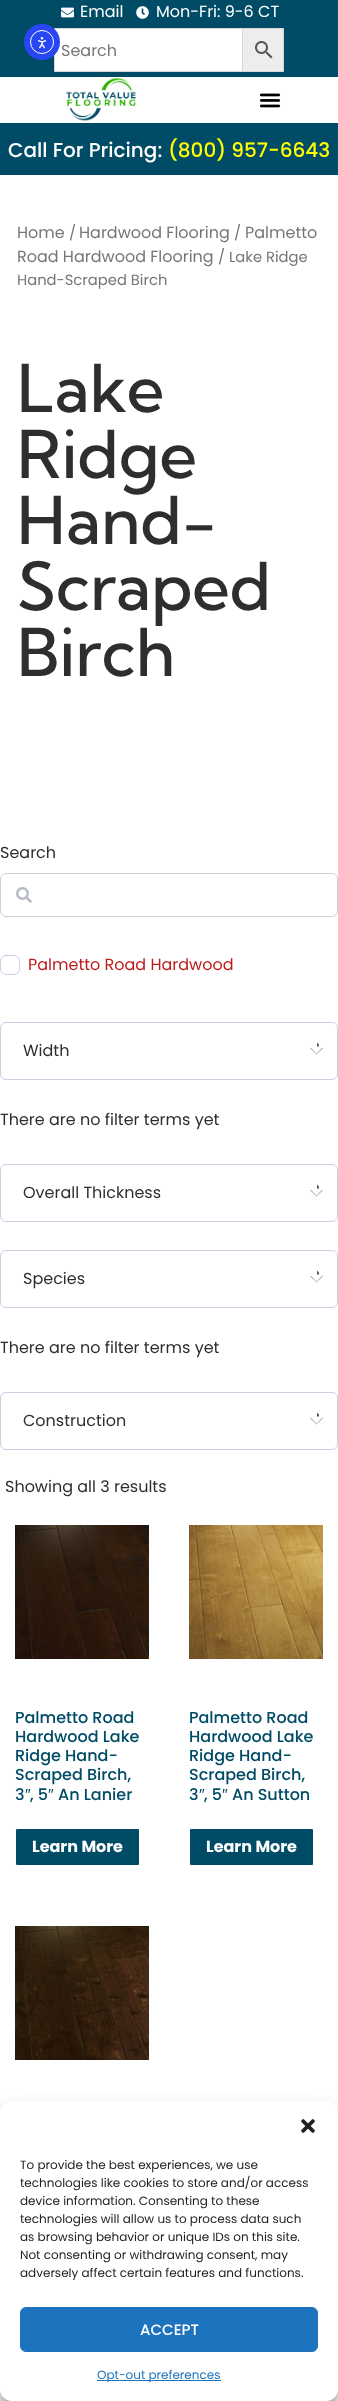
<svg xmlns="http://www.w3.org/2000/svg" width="338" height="2401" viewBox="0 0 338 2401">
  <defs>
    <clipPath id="clip1"><path d="M316.5 1054.5L310 1048.5L316.5 1042L323 1048.5Z"/></clipPath>
    <clipPath id="clip2"><path d="M316.5 1196.5L310 1190.5L316.5 1184L323 1190.5Z"/></clipPath>
    <clipPath id="clip3"><path d="M316.5 1282.5L310 1276.5L316.5 1270L323 1276.5Z"/></clipPath>
    <clipPath id="clip4"><path d="M316.5 1424.5L310 1418.5L316.5 1412L323 1418.5Z"/></clipPath>
  </defs>
  <rect width="100%" height="100%" fill="#fff"/>
  <path d="M0 0h338v77H0z" fill="#004c66"/>
  <image x="61" y="7" width="13" height="11" href="img/1.png"/>
  <image x="136" y="6" width="13" height="13" href="img/2.png"/>
  <path d="M242.5 28.5h41v43H242.5z" fill="#ededed" stroke="#d8d8d8"/>
  <path d="M54.5 28.5h188v43H54.5z" fill="#fff" stroke="#d8d8d8"/>
  <image x="255" y="41" width="18" height="18" href="img/3.png"/>
  <path d="M0 123h338v52H0z" fill="#004c66"/>
  <image x="66" y="77" width="71" height="44" href="img/4.png"/>
  <image x="259" y="93" width="22" height="15" href="img/5.png"/>
  <circle cx="42" cy="42" r="18" fill="#2847f3"/>
  <circle cx="42" cy="42" r="11.5" fill="none" stroke="#fff"/>
  <image x="37" y="37" width="10" height="12" href="img/6.png"/>
  <rect x="0.5" y="873.5" width="337" height="43" rx="5.5" fill="none" stroke="#ccd0dc"/>
  <image x="16" y="887" width="16" height="16" href="img/7.png"/>
  <rect x="0.5" y="955.5" width="19" height="19" rx="5.5" fill="none" stroke="#c9d1e0"/>
  <rect x="0.5" y="1022.5" width="337" height="57" rx="5.5" fill="none" stroke="#c9d1e0"/>
  <rect x="297" y="1023" width="40" height="54" rx="6" fill="#fff"/>
  <g clip-path="url(#clip1)">
    <path d="M318 1046V1040.5H312.5" fill="none" stroke="#000" stroke-width="1.3" stroke-linecap="round" stroke-linejoin="round"/>
  </g>
  <path d="M316.5 1054.5L310 1048.5L311 1047.5L317 1054Z" fill="#b8bcc8"/>
  <path d="M316.5 1054.5L316 1054L322 1047.5L323 1048.5Z" fill="#b8bcc8"/>
  <rect x="0.5" y="1164.5" width="337" height="57" rx="5.5" fill="none" stroke="#c9d1e0"/>
  <rect x="297" y="1165" width="40" height="54" rx="6" fill="#fff"/>
  <g clip-path="url(#clip2)">
    <path d="M318 1188V1182.5H312.5" fill="none" stroke="#000" stroke-width="1.3" stroke-linecap="round" stroke-linejoin="round"/>
  </g>
  <path d="M316.5 1196.5L310 1190.5L311 1189.5L317 1196Z" fill="#b8bcc8"/>
  <path d="M316.5 1196.5L316 1196L322 1189.5L323 1190.5Z" fill="#b8bcc8"/>
  <rect x="0.5" y="1250.5" width="337" height="57" rx="5.5" fill="none" stroke="#c9d1e0"/>
  <rect x="297" y="1251" width="40" height="54" rx="6" fill="#fff"/>
  <g clip-path="url(#clip3)">
    <path d="M318 1274V1268.5H312.5" fill="none" stroke="#000" stroke-width="1.3" stroke-linecap="round" stroke-linejoin="round"/>
  </g>
  <path d="M316.5 1282.5L310 1276.5L311 1275.5L317 1282Z" fill="#b8bcc8"/>
  <path d="M316.5 1282.5L316 1282L322 1275.5L323 1276.5Z" fill="#b8bcc8"/>
  <rect x="0.5" y="1392.5" width="337" height="57" rx="5.5" fill="none" stroke="#c9d1e0"/>
  <rect x="297" y="1393" width="40" height="54" rx="6" fill="#fff"/>
  <g clip-path="url(#clip4)">
    <path d="M318 1416V1410.5H312.5" fill="none" stroke="#000" stroke-width="1.3" stroke-linecap="round" stroke-linejoin="round"/>
  </g>
  <path d="M316.5 1424.5L310 1418.5L311 1417.5L317 1424Z" fill="#b8bcc8"/>
  <path d="M316.5 1424.5L316 1424L322 1417.5L323 1418.5Z" fill="#b8bcc8"/>
  <image x="15" y="1525" width="134" height="134" href="img/8.png"/>
  <rect x="15.5" y="1828.5" width="124" height="37" rx="1.5" fill="#004c66" stroke="#fff"/>
  <image x="189" y="1525" width="134" height="134" href="img/9.png"/>
  <rect x="189.5" y="1828.5" width="124" height="37" rx="1.5" fill="#004c66" stroke="#fff"/>
  <image x="15" y="1926" width="134" height="134" href="img/10.png"/>
  <rect x="14" y="2375" width="300" height="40" rx="5" fill="#00000069" filter="blur(3px)"/>
  <rect y="2107" width="338" height="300" rx="12" fill="#0000003b" filter="blur(3px)"/>
  <rect y="2111" width="338" height="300" rx="12" fill="#00000030" filter="blur(10px)"/>
  <rect y="2101" width="338" height="300" rx="12" fill="#fff"/>
  <image x="301" y="2119" width="14" height="14" href="img/11.png"/>
  <rect x="20.5" y="2307.5" width="297" height="44" rx="5.5" fill="#1e73be" stroke="#1e73be"/>
  <path d="M97 2380h124v1H97z" fill="#1e73be"/>
  <g font-family="Poppins" font-size="16" fill="#fff">
    <text x="80" y="17">Email</text>
    <text x="156" y="17">Mon-Fri: 9-6 CT</text>
  </g>
  <text x="61" y="56" font-family="Poppins" font-size="16" fill="#767676">Search</text>
  <text x="8" y="157" font-family="Poppins" font-size="20" font-weight="500" fill="#fff">Call For Pricing:</text>
  <text x="168" y="157" font-family="Poppins" font-size="20" font-weight="500" fill="#ff0">(800) 957-6643</text>
  <text x="17" y="238" font-family="Poppins" font-size="16" fill="#767676">Home</text>
  <text x="69" y="238" font-family="Poppins" font-size="14.75" fill="#767676">/</text>
  <text x="79" y="238" font-family="Poppins" font-size="16" fill="#767676">Hardwood Flooring</text>
  <text x="234" y="238" font-family="Poppins" font-size="14.75" fill="#767676">/</text>
  <g font-family="Poppins" font-size="16" fill="#767676">
    <text x="245" y="238">Palmetto</text>
    <text x="17" y="262">Road Hardwood Flooring</text>
  </g>
  <g font-family="Poppins" font-size="14.75" fill="#767676">
    <text x="218" y="262">/ Lake Ridge</text>
    <text x="17" y="285">Hand-Scraped Birch</text>
  </g>
  <g font-family="Kumbh Sans" font-size="66" font-weight="500" fill="#2e2e2e">
    <text x="17" y="412">Lake</text>
    <text x="17" y="478">Ridge</text>
    <text x="17" y="544">Hand-</text>
    <text x="17" y="610">Scraped</text>
    <text x="17" y="676">Birch</text>
  </g>
  <text x="0" y="858" font-family="Poppins" font-size="16" fill="#2e2e2e">Search</text>
  <text x="28" y="970" font-family="Poppins" font-size="16" fill="#bd1c1c">Palmetto Road Hardwood</text>
  <g font-family="Poppins" font-size="16" fill="#2e2e2e">
    <text x="23" y="1056">Width</text>
    <text x="0" y="1125">There are no filter terms yet</text>
    <text x="23" y="1198">Overall Thickness</text>
    <text x="23" y="1284">Species</text>
    <text x="0" y="1353">There are no filter terms yet</text>
    <text x="23" y="1426">Construction</text>
    <text x="5" y="1492">Showing all 3 results</text>
  </g>
  <g font-family="Poppins" font-size="16" font-weight="500" fill="#004c66">
    <text x="15" y="1723">Palmetto Road</text>
    <text x="15" y="1742">Hardwood Lake</text>
    <text x="15" y="1761">Ridge Hand-</text>
    <text x="15" y="1780">Scraped Birch,</text>
    <text x="15" y="1800">3</text>
  </g>
  <text x="25" y="1800" font-family="Liberation Sans" font-size="16" fill="#004c66">″</text>
  <text x="30" y="1800" font-family="Poppins" font-size="16" font-weight="500" fill="#004c66">, 5</text>
  <text x="48" y="1800" font-family="Liberation Sans" font-size="16" fill="#004c66">″</text>
  <text x="58" y="1800" font-family="Poppins" font-size="16" font-weight="500" fill="#004c66">An Lanier</text>
  <text x="32" y="1852" font-family="Poppins" font-size="16" font-weight="bold" fill="#fff">Learn More</text>
  <g font-family="Poppins" font-size="16" font-weight="500" fill="#004c66">
    <text x="189" y="1723">Palmetto Road</text>
    <text x="189" y="1742">Hardwood Lake</text>
    <text x="189" y="1761">Ridge Hand-</text>
    <text x="189" y="1780">Scraped Birch,</text>
    <text x="189" y="1800">3</text>
  </g>
  <text x="199" y="1800" font-family="Liberation Sans" font-size="16" fill="#004c66">″</text>
  <text x="204" y="1800" font-family="Poppins" font-size="16" font-weight="500" fill="#004c66">, 5</text>
  <text x="222" y="1800" font-family="Liberation Sans" font-size="16" fill="#004c66">″</text>
  <text x="232" y="1800" font-family="Poppins" font-size="16" font-weight="500" fill="#004c66">An Sutton</text>
  <text x="206" y="1852" font-family="Poppins" font-size="16" font-weight="bold" fill="#fff">Learn More</text>
  <g font-family="Poppins" font-size="12" fill="#222">
    <text x="20" y="2169">To provide the best experiences, we use</text>
    <text x="20" y="2187">technologies like cookies to store and/or access</text>
    <text x="20" y="2205">device information. Consenting to these</text>
    <text x="20" y="2223">technologies will allow us to process data such</text>
    <text x="20" y="2241">as browsing behavior or unique IDs on this site.</text>
    <text x="20" y="2259">Not consenting or withdrawing consent, may</text>
    <text x="20" y="2277">adversely affect certain features and functions.</text>
  </g>
  <text x="140" y="2335" font-family="Poppins" font-size="15" font-weight="500" fill="#fff">ACCEPT</text>
  <text x="97" y="2379" font-family="Poppins" font-size="12" fill="#1e73be">Opt-out preferences</text>
</svg>
